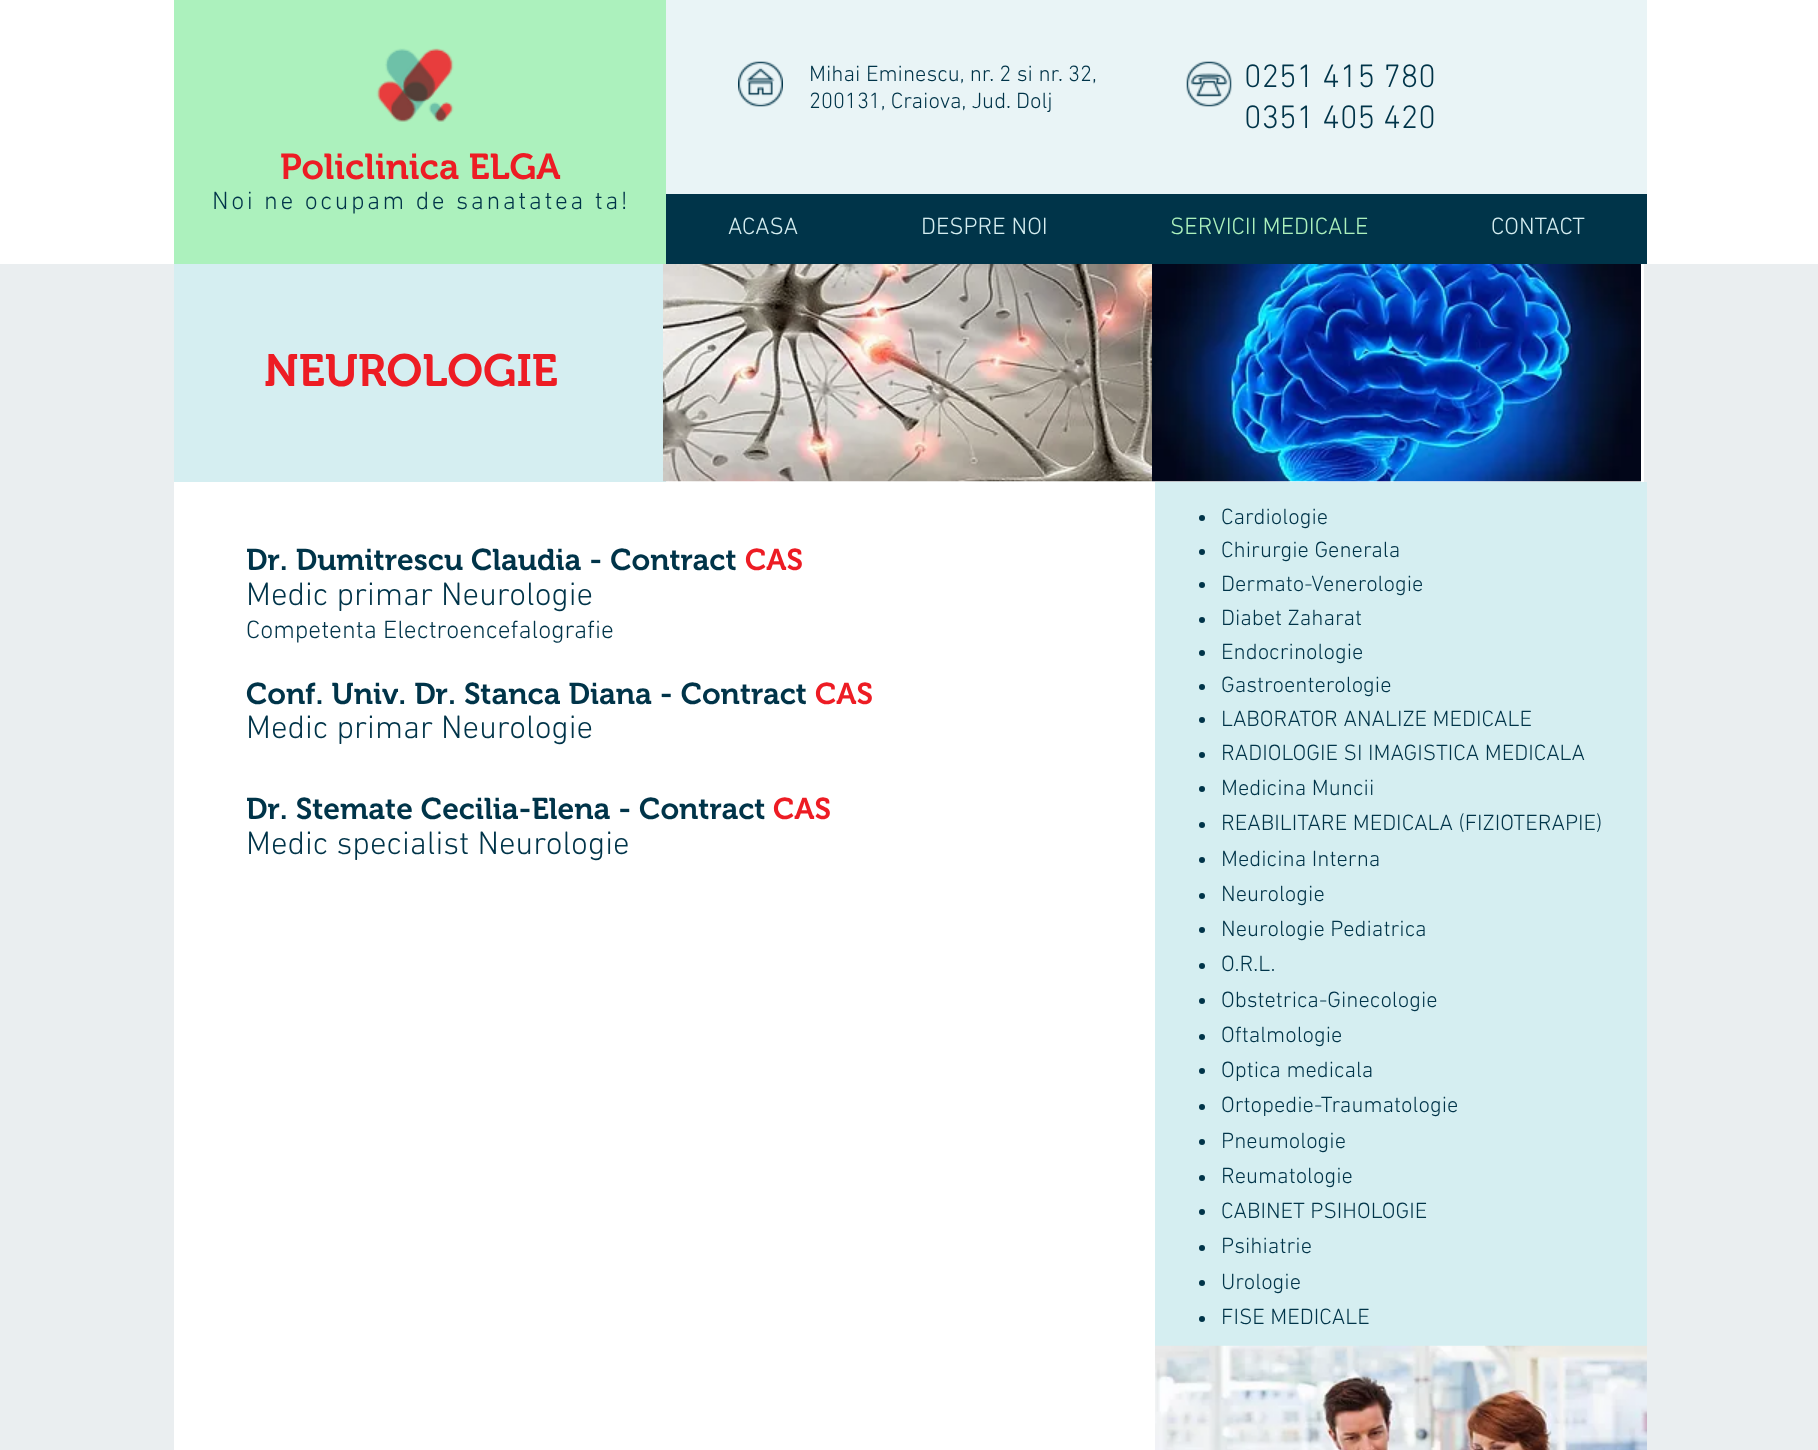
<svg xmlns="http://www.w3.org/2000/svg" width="1818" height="1450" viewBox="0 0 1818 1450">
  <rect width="100%" height="100%" fill="#eaeef0"/>
  <path d="M0 0h1818v264H0z" fill="#fff"/>
  <path d="M174 0h492v264H174z" fill="#acf1bd"/>
  <image x="376" y="48" width="78" height="74" href="img/1.png"/>
  <path d="M666 0h981v194H666z" fill="#e9f4f6"/>
  <image x="738" y="61" width="45" height="46" href="img/2.png"/>
  <image x="1186" y="61" width="46" height="46" href="img/3.png"/>
  <path d="M666 194h981v70H666z" fill="#003449"/>
  <path d="M174 264h1470v1186H174z" fill="#fff"/>
  <path d="M174 264h492v218H174z" fill="#d5eef1"/>
  <image x="663" y="264" width="489" height="218" href="img/4.png"/>
  <image x="1152" y="264" width="489" height="218" href="img/5.png"/>
  <path d="M1155 482h492v864H1155z" fill="#d5eef1"/>
  <circle cx="1202" cy="518" r="3" fill="#003449"/>
  <circle cx="1202" cy="552" r="3" fill="#003449"/>
  <circle cx="1202" cy="585" r="3" fill="#003449"/>
  <circle cx="1202" cy="620" r="3" fill="#003449"/>
  <circle cx="1202" cy="653" r="3" fill="#003449"/>
  <circle cx="1202" cy="687" r="3" fill="#003449"/>
  <circle cx="1202" cy="720" r="3" fill="#003449"/>
  <circle cx="1202" cy="755" r="3" fill="#003449"/>
  <circle cx="1202" cy="789" r="3" fill="#003449"/>
  <circle cx="1202" cy="825" r="3" fill="#003449"/>
  <circle cx="1202" cy="860" r="3" fill="#003449"/>
  <circle cx="1202" cy="896" r="3" fill="#003449"/>
  <circle cx="1202" cy="930" r="3" fill="#003449"/>
  <circle cx="1202" cy="966" r="3" fill="#003449"/>
  <circle cx="1202" cy="1001" r="3" fill="#003449"/>
  <circle cx="1202" cy="1037" r="3" fill="#003449"/>
  <circle cx="1202" cy="1071" r="3" fill="#003449"/>
  <circle cx="1202" cy="1107" r="3" fill="#003449"/>
  <circle cx="1202" cy="1142" r="3" fill="#003449"/>
  <circle cx="1202" cy="1178" r="3" fill="#003449"/>
  <circle cx="1202" cy="1212" r="3" fill="#003449"/>
  <circle cx="1202" cy="1248" r="3" fill="#003449"/>
  <circle cx="1202" cy="1283" r="3" fill="#003449"/>
  <circle cx="1202" cy="1319" r="3" fill="#003449"/>
  <image x="1155" y="1345" width="492" height="105" href="img/6.png"/>
  <g font-family="'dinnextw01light'" font-size="22.5" font-weight="300" fill="#003449">
    <text x="809" y="81">Mihai Eminescu, nr. 2 si nr. 32,</text>
    <text x="809" y="108">200131, Craiova, Jud. Dolj</text>
  </g>
  <g font-family="'dinnextw01light'" font-size="33" font-weight="300" fill="#003449">
    <text x="1244" y="87">0251 415 780</text>
    <text x="1244" y="128">0351 405 420</text>
  </g>
  <text x="280" y="179" font-family="'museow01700'" font-size="36" font-weight="600" fill="#ed1c24">Policlinica ELGA</text>
  <text x="212" y="209" font-family="'dinnextw01light'" font-size="25.5" font-weight="300" letter-spacing="2.55" fill="#003449">Noi ne ocupam de sanatatea ta!</text>
  <g font-family="'dinnextw01light'" font-size="24" font-weight="300" fill="#d5eef1">
    <text x="728" y="234">ACASA</text>
    <text x="921" y="234">DESPRE NOI</text>
  </g>
  <text x="1170" y="234" font-family="'dinnextw01light'" font-size="24" font-weight="300" fill="#acf1bd">SERVICII MEDICALE</text>
  <text x="1491" y="234" font-family="'dinnextw01light'" font-size="24" font-weight="300" fill="#d5eef1">CONTACT</text>
  <text x="264" y="386" font-family="'museow01700'" font-size="45" font-weight="600" fill="#ed1c24">NEUROLOGIE</text>
  <text x="246" y="570" font-family="'museow01700'" font-size="30" font-weight="600" fill="#003449">Dr. Dumitrescu Claudia - Contract</text>
  <text x="745" y="570" font-family="'museow01700'" font-size="30" font-weight="600" fill="#ed1c24">CAS</text>
  <text x="246" y="605" font-family="'dinnextw01light'" font-size="33" font-weight="300" fill="#003449">Medic primar Neurologie</text>
  <text x="246" y="638" font-family="'dinnextw01light'" font-size="25.5" font-weight="300" fill="#003449">Competenta Electroencefalografie</text>
  <text x="246" y="704" font-family="'museow01700'" font-size="30" font-weight="600" fill="#003449">Conf. Univ. Dr. Stanca Diana - Contract</text>
  <text x="815" y="704" font-family="'museow01700'" font-size="30" font-weight="600" fill="#ed1c24">CAS</text>
  <text x="246" y="738" font-family="'dinnextw01light'" font-size="33" font-weight="300" fill="#003449">Medic primar Neurologie</text>
  <text x="246" y="819" font-family="'museow01700'" font-size="30" font-weight="600" fill="#003449">Dr. Stemate Cecilia-Elena - Contract</text>
  <text x="773" y="819" font-family="'museow01700'" font-size="30" font-weight="600" fill="#ed1c24">CAS</text>
  <text x="246" y="854" font-family="'dinnextw01light'" font-size="33" font-weight="300" fill="#003449">Medic specialist Neurologie</text>
  <g font-family="'dinnextw01light'" font-size="22.5" font-weight="300" fill="#003449">
    <text x="1221" y="524">Cardiologie</text>
    <text x="1221" y="557">Chirurgie Generala</text>
    <text x="1221" y="591">Dermato-Venerologie</text>
    <text x="1221" y="625">Diabet Zaharat</text>
    <text x="1221" y="659">Endocrinologie</text>
    <text x="1221" y="692">Gastroenterologie</text>
    <text x="1221" y="726">LABORATOR ANALIZE MEDICALE</text>
    <text x="1221" y="760">RADIOLOGIE SI IMAGISTICA MEDICALA</text>
    <text x="1221" y="795">Medicina Muncii</text>
    <text x="1221" y="830">REABILITARE MEDICALA (FIZIOTERAPIE)</text>
    <text x="1221" y="866">Medicina Interna</text>
    <text x="1221" y="901">Neurologie</text>
    <text x="1221" y="936">Neurologie Pediatrica</text>
    <text x="1221" y="971">O.R.L.</text>
    <text x="1221" y="1007">Obstetrica-Ginecologie</text>
    <text x="1221" y="1042">Oftalmologie</text>
    <text x="1221" y="1077">Optica medicala</text>
    <text x="1221" y="1112">Ortopedie-Traumatologie</text>
    <text x="1221" y="1148">Pneumologie</text>
    <text x="1221" y="1183">Reumatologie</text>
    <text x="1221" y="1218">CABINET PSIHOLOGIE</text>
    <text x="1221" y="1253">Psihiatrie</text>
    <text x="1221" y="1289">Urologie</text>
    <text x="1221" y="1324">FISE MEDICALE</text>
  </g>
</svg>
